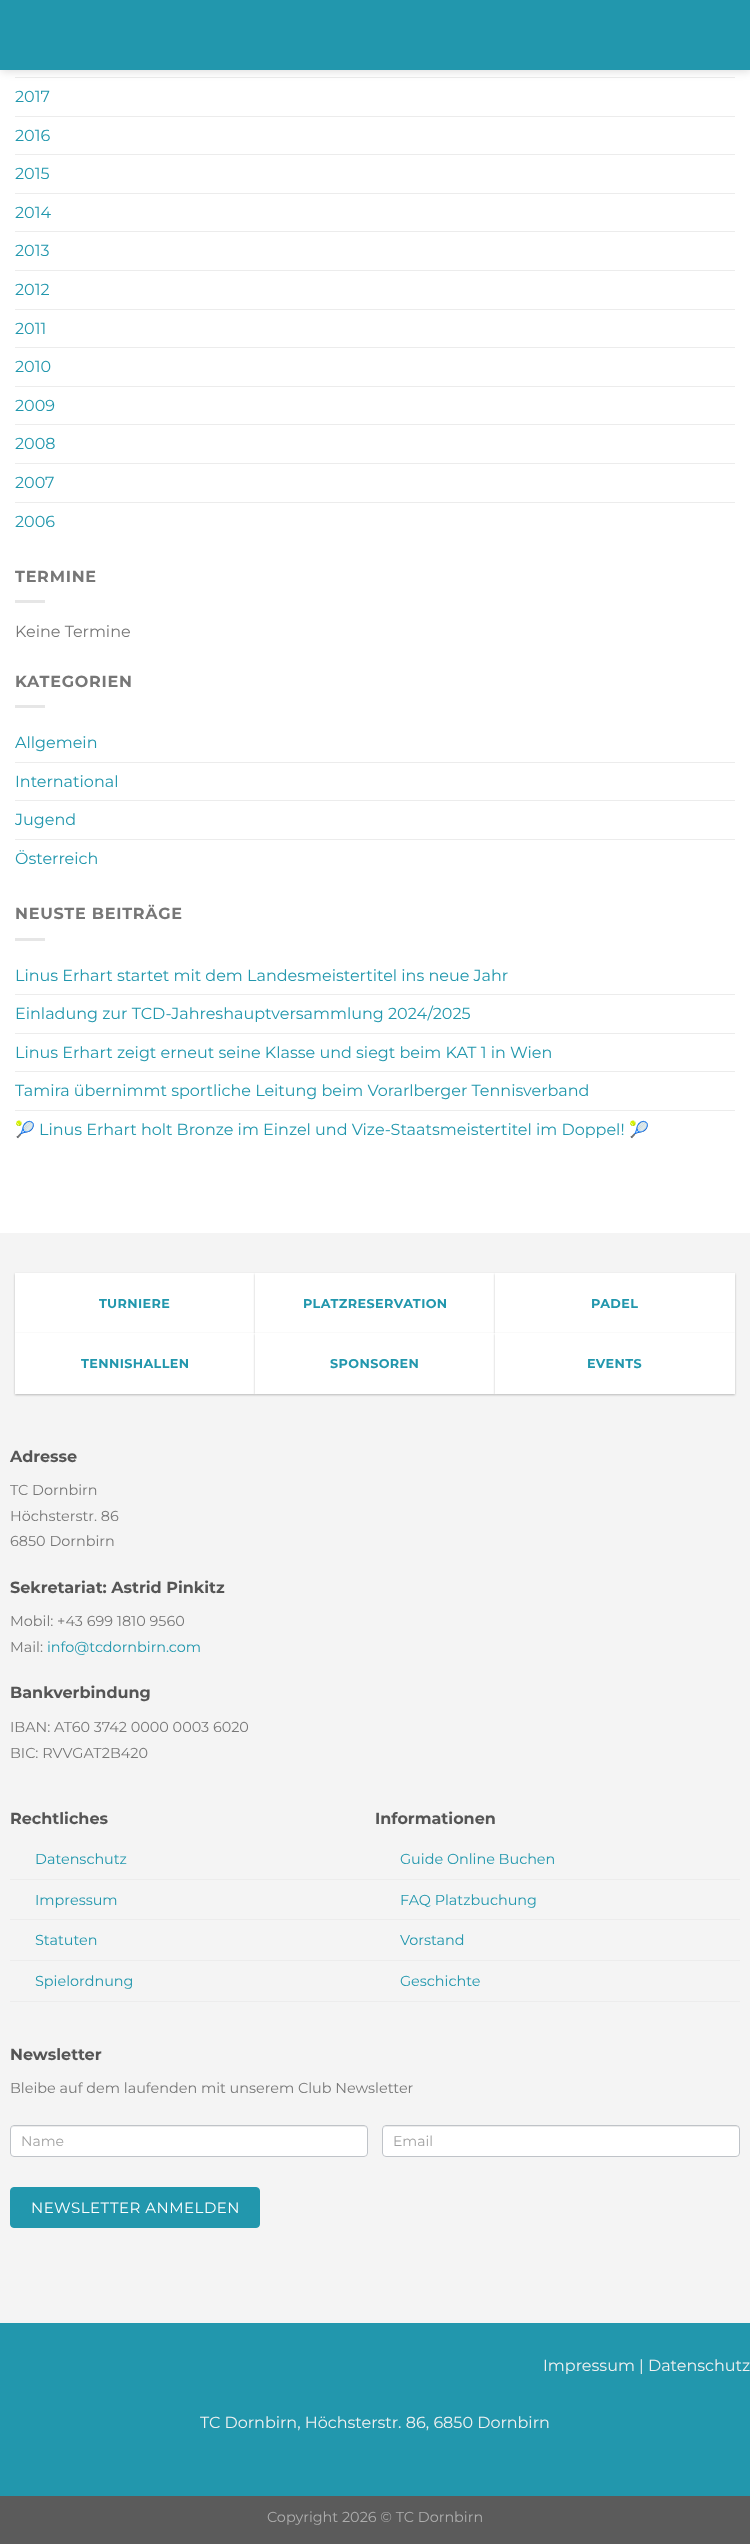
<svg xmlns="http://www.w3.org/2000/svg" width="750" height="2544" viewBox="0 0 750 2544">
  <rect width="100%" height="100%" fill="#fff"/>
  <path d="M15 77h720v1H15z" fill="#ececec"/>
  <path d="M1 1h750v70H1z" fill="#00000026" filter="blur(5px)"/>
  <path d="M0 0h750v70H0z" fill="#2297ad"/>
  <path d="M15 116h720v1H15z" fill="#ececec"/>
  <path d="M15 154h720v1H15z" fill="#ececec"/>
  <path d="M15 193h720v1H15z" fill="#ececec"/>
  <path d="M15 231h720v1H15z" fill="#ececec"/>
  <path d="M15 270h720v1H15z" fill="#ececec"/>
  <path d="M15 309h720v1H15z" fill="#ececec"/>
  <path d="M15 347h720v1H15z" fill="#ececec"/>
  <path d="M15 386h720v1H15z" fill="#ececec"/>
  <path d="M15 424h720v1H15z" fill="#ececec"/>
  <path d="M15 463h720v1H15z" fill="#ececec"/>
  <path d="M15 502h720v1H15z" fill="#ececec"/>
  <path d="M15 600h30v3H15z" fill="#e6e6e6"/>
  <path d="M15 705h30v3H15z" fill="#e6e6e6"/>
  <path d="M15 762h720v1H15z" fill="#ececec"/>
  <path d="M15 800h720v1H15z" fill="#ececec"/>
  <path d="M15 839h720v1H15z" fill="#ececec"/>
  <path d="M15 938h30v3H15z" fill="#e6e6e6"/>
  <path d="M15 994h720v1H15z" fill="#ececec"/>
  <path d="M15 1033h720v1H15z" fill="#ececec"/>
  <path d="M15 1071h720v1H15z" fill="#ececec"/>
  <path d="M15 1110h720v1H15z" fill="#ececec"/>
  <path d="M0 1233h750v1090H0z" fill="#f4f4f4"/>
  <path d="M15 1274h240v60H15z" fill="#0000003d" filter="blur(1px)"/>
  <path d="M15 1273h240v60H15z" fill="#fff"/>
  <path d="M255 1274h240v60H255z" fill="#0000003d" filter="blur(1px)"/>
  <path d="M255 1273h240v60H255z" fill="#fff"/>
  <path d="M495 1274h240v60H495z" fill="#0000003d" filter="blur(1px)"/>
  <path d="M495 1273h240v60H495z" fill="#fff"/>
  <path d="M15 1334h240v61H15z" fill="#0000003d" filter="blur(1px)"/>
  <path d="M15 1333h240v61H15z" fill="#fff"/>
  <path d="M255 1334h240v61H255z" fill="#0000003d" filter="blur(1px)"/>
  <path d="M255 1333h240v61H255z" fill="#fff"/>
  <path d="M495 1334h240v61H495z" fill="#0000003d" filter="blur(1px)"/>
  <path d="M495 1333h240v61H495z" fill="#fff"/>
  <path d="M10 1879h730v1H10z" fill="#ececec"/>
  <path d="M10 1919h730v1H10z" fill="#ececec"/>
  <path d="M10 1960h730v1H10z" fill="#ececec"/>
  <path d="M10 2001h730v1H10z" fill="#ececec"/>
  <rect x="10" y="2125" width="358" height="32" rx="4" fill="#fff"/>
  <path d="M14 2127H364C366 2127 367 2128 367 2130C367 2128 366 2126 364 2126H14L12 2127L11 2130C11 2128 12 2127 14 2127Z" fill="#ececec"/>
  <rect x="10.5" y="2125.5" width="357" height="31" rx="3.5" fill="none" stroke="#bfc3c8"/>
  <rect x="382" y="2125" width="358" height="32" rx="4" fill="#fff"/>
  <path d="M386 2127H736C738 2127 739 2128 739 2130C739 2128 738 2126 736 2126H386L384 2127L383 2130C383 2128 384 2127 386 2127Z" fill="#ececec"/>
  <rect x="382.5" y="2125.5" width="357" height="31" rx="3.5" fill="none" stroke="#bfc3c8"/>
  <rect x="10.5" y="2187.5" width="249" height="40" rx="3.5" fill="#2297ad" stroke="#2297ad"/>
  <path d="M0 2323h750v173H0z" fill="#2297ad"/>
  <path d="M0 2496h750v48H0z" fill="#5b5b5b"/>
  <g font-family="Montserrat" font-size="16" fill="#2297ad">
    <text x="15" y="102">2017</text>
    <text x="15" y="141">2016</text>
    <text x="15" y="179">2015</text>
    <text x="15" y="218">2014</text>
    <text x="15" y="256">2013</text>
    <text x="15" y="295">2012</text>
    <text x="15" y="334">2011</text>
    <text x="15" y="372">2010</text>
    <text x="15" y="411">2009</text>
    <text x="15" y="449">2008</text>
    <text x="15" y="488">2007</text>
    <text x="15" y="527">2006</text>
  </g>
  <text x="15" y="582" font-family="Montserrat" font-size="16" font-weight="bold" letter-spacing="0.75" fill="#777">TERMINE</text>
  <text x="15" y="637" font-family="Montserrat" font-size="16" fill="#777">Keine Termine</text>
  <text x="15" y="687" font-family="Montserrat" font-size="16" font-weight="bold" letter-spacing="0.75" fill="#777">KATEGORIEN</text>
  <g font-family="Montserrat" font-size="16" fill="#2297ad">
    <text x="15" y="748">Allgemein</text>
    <text x="15" y="787">International</text>
    <text x="15" y="825">Jugend</text>
    <text x="15" y="864">Österreich</text>
  </g>
  <text x="15" y="919" font-family="Montserrat" font-size="16" font-weight="bold" letter-spacing="0.75" fill="#777">NEUSTE BEITRÄGE</text>
  <g font-family="Montserrat" font-size="16" fill="#2297ad">
    <text x="15" y="981">Linus Erhart startet mit dem Landesmeistertitel ins neue Jahr</text>
    <text x="15" y="1019">Einladung zur TCD-Jahreshauptversammlung 2024/2025</text>
    <text x="15" y="1058">Linus Erhart zeigt erneut seine Klasse und siegt beim KAT 1 in Wien</text>
    <text x="15" y="1096">Tamira übernimmt sportliche Leitung beim Vorarlberger Tennisverband</text>
  </g>
  <text x="15" y="1135" font-family="Noto Color Emoji" font-size="16" fill="#2297ad">🎾</text>
  <text x="39" y="1135" font-family="Montserrat" font-size="16" fill="#2297ad">Linus Erhart holt Bronze im Einzel und Vize-Staatsmeistertitel im Doppel!</text>
  <text x="629" y="1135" font-family="Noto Color Emoji" font-size="16" fill="#2297ad">🎾</text>
  <g font-family="Montserrat" font-size="12.75" font-weight="bold" letter-spacing="0.4" fill="#2297ad">
    <text x="99" y="1308">TURNIERE</text>
    <text x="303" y="1308">PLATZRESERVATION</text>
    <text x="591" y="1308">PADEL</text>
    <text x="81" y="1368">TENNISHALLEN</text>
    <text x="330" y="1368">SPONSOREN</text>
    <text x="587" y="1368">EVENTS</text>
  </g>
  <text x="10" y="1462" font-family="Montserrat" font-size="16" font-weight="bold" fill="#555">Adresse</text>
  <g font-family="Montserrat" font-size="14.4" fill="#777">
    <text x="10" y="1495">TC Dornbirn</text>
    <text x="10" y="1521">Höchsterstr. 86</text>
    <text x="10" y="1546">6850 Dornbirn</text>
  </g>
  <text x="10" y="1593" font-family="Montserrat" font-size="16" font-weight="bold" fill="#555">Sekretariat: Astrid Pinkitz</text>
  <g font-family="Montserrat" font-size="14.4" fill="#777">
    <text x="10" y="1626">Mobil: +43 699 1810 9560</text>
    <text x="10" y="1652">Mail:</text>
  </g>
  <text x="47" y="1652" font-family="Montserrat" font-size="14.4" fill="#2297ad">info@tcdornbirn.com</text>
  <text x="10" y="1698" font-family="Montserrat" font-size="16" font-weight="bold" fill="#555">Bankverbindung</text>
  <g font-family="Montserrat" font-size="14.4" fill="#777">
    <text x="10" y="1732">IBAN: AT60 3742 0000 0003 6020</text>
    <text x="10" y="1758">BIC: RVVGAT2B420</text>
  </g>
  <text x="10" y="1824" font-family="Montserrat" font-size="16" font-weight="bold" fill="#555">Rechtliches</text>
  <g font-family="Montserrat" font-size="14.4" fill="#2297ad">
    <text x="35" y="1864">Datenschutz</text>
    <text x="35" y="1905">Impressum</text>
    <text x="35" y="1945">Statuten</text>
    <text x="35" y="1986">Spielordnung</text>
  </g>
  <text x="375" y="1824" font-family="Montserrat" font-size="16" font-weight="bold" fill="#555">Informationen</text>
  <g font-family="Montserrat" font-size="14.4" fill="#2297ad">
    <text x="400" y="1864">Guide Online Buchen</text>
    <text x="400" y="1905">FAQ Platzbuchung</text>
    <text x="400" y="1945">Vorstand</text>
    <text x="400" y="1986">Geschichte</text>
  </g>
  <text x="10" y="2060" font-family="Montserrat" font-size="16" font-weight="bold" fill="#555">Newsletter</text>
  <text x="10" y="2093" font-family="Montserrat" font-size="14.4" fill="#777">Bleibe auf dem laufenden mit unserem Club Newsletter</text>
  <g font-family="Montserrat" font-size="14" fill="#a1a1a1">
    <text x="21" y="2146">Name</text>
    <text x="393" y="2146">Email</text>
  </g>
  <text x="31" y="2213" font-family="Montserrat" font-size="15" letter-spacing="0.5" fill="#fff">NEWSLETTER ANMELDEN</text>
  <g font-family="Montserrat" font-size="16" fill="#f1f1f1">
    <text x="543" y="2371">Impressum | Datenschutz</text>
    <text x="200" y="2428">TC Dornbirn, Höchsterstr. 86, 6850 Dornbirn</text>
  </g>
  <text x="267" y="2522" font-family="Montserrat" font-size="14.4" fill="#adadad">Copyright 2026 © TC Dornbirn</text>
</svg>
